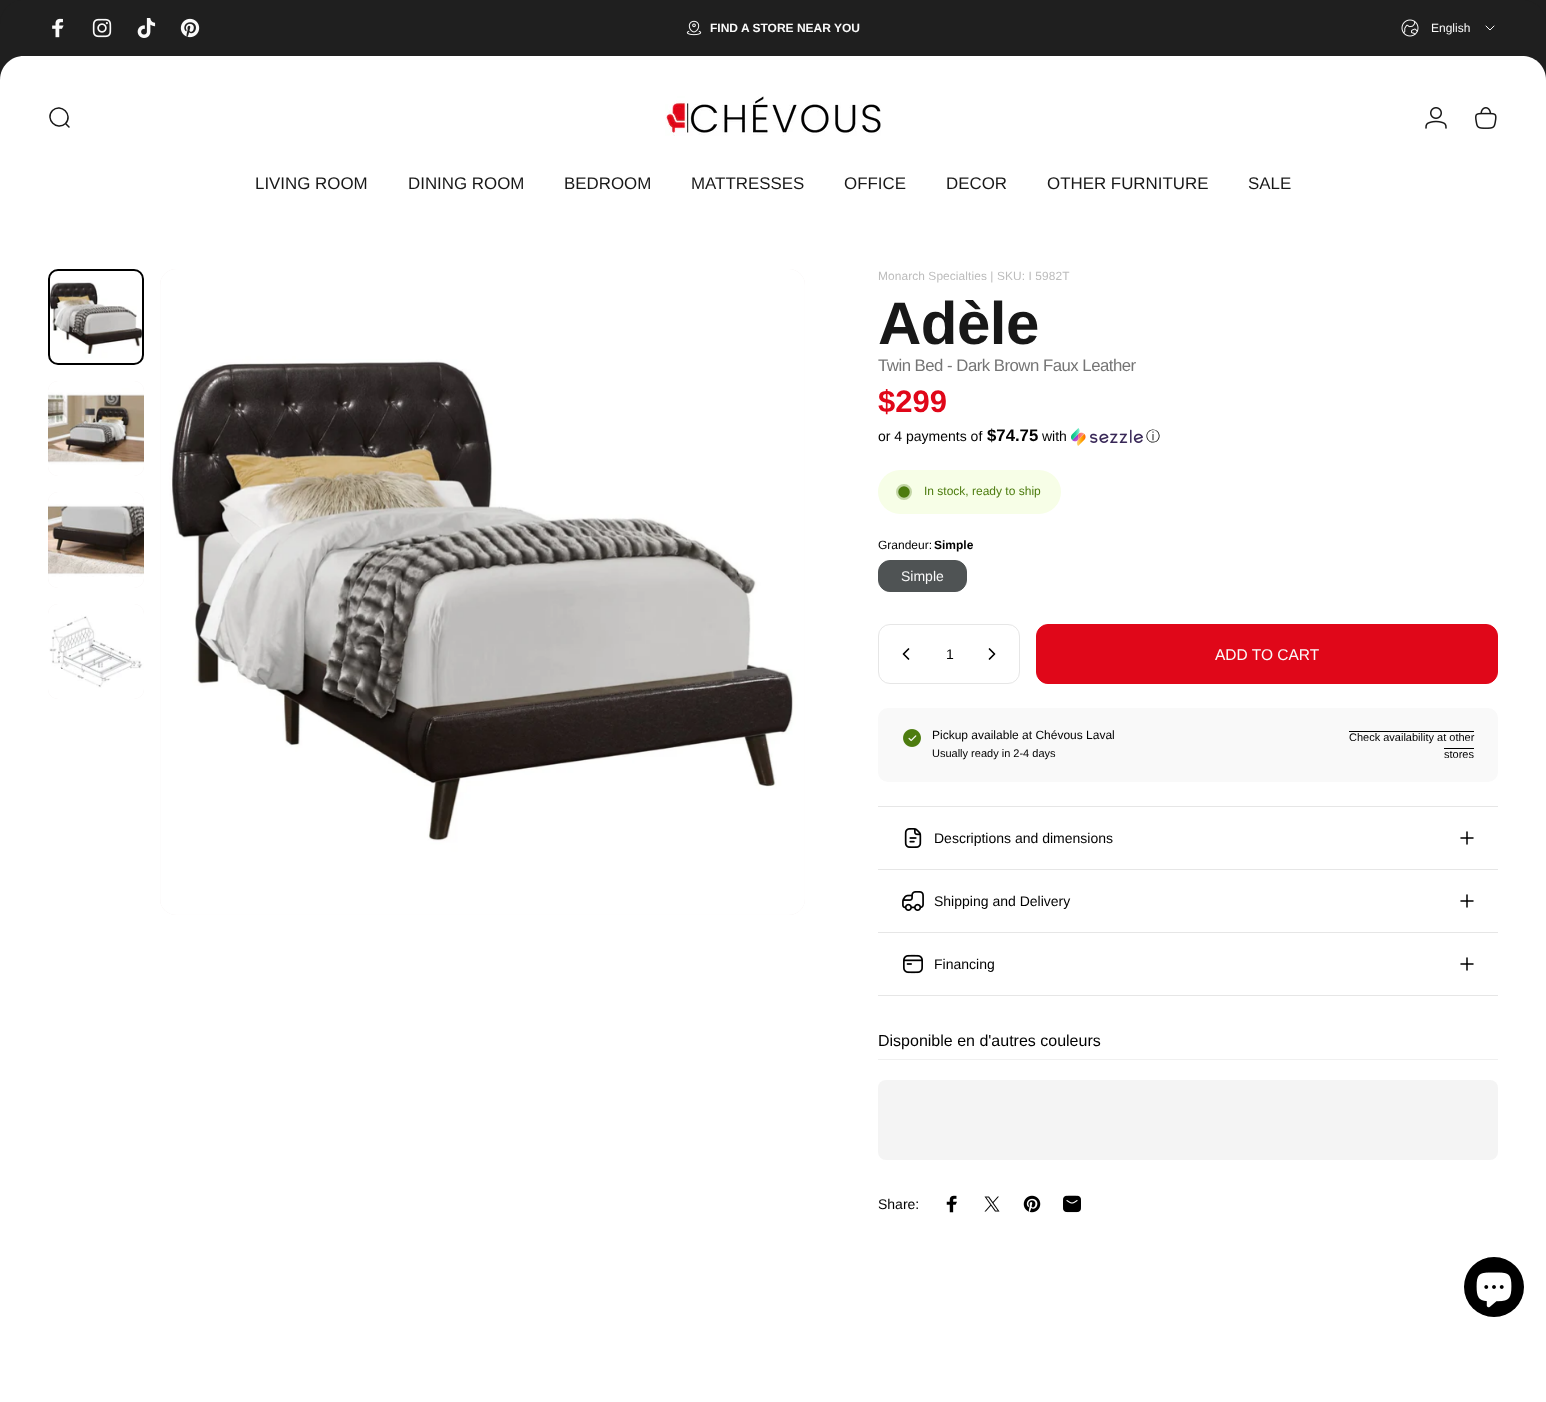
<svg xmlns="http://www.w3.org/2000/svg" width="1546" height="1402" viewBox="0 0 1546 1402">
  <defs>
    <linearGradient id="g1" gradientUnits="userSpaceOnUse" x1="909" y1="907" x2="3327" y2="1333"><stop offset="0.4" stop-color="#f4f4f4"/><stop offset="0.63" stop-color="#e2e2e2"/><stop offset="0.79" stop-color="#f4f4f4"/></linearGradient>
  </defs>
  <rect width="100%" height="100%" fill="#fff"/>
  <path d="M0 0h1546v24H0z" fill="#1f1f1f"/>
  <path d="M24 0H1522C1535.5 0 1546 10.5 1546 24V80H0V24C0 10.5 10.5 0 24 0Z" fill="#1f1f1f"/>
  <image x="52" y="18" width="12" height="20" href="img/1.png"/>
  <image x="92" y="18" width="20" height="20" href="img/2.png"/>
  <image x="137" y="18" width="19" height="20" href="img/3.png"/>
  <image x="180" y="18" width="20" height="20" href="img/4.png"/>
  <image x="686" y="20" width="16" height="16" href="img/5.png"/>
  <image x="1401" y="19" width="18" height="18" href="img/6.png"/>
  <path d="M1486 26L1490 30L1494 26" fill="none" stroke="#fafafa" stroke-linecap="round" stroke-linejoin="round"/>
  <path d="M24 56H1522C1535.5 56 1546 66.5 1546 80V237H0V80C0 66.5 10.5 56 24 56Z" fill="#fff"/>
  <path d="M69 127L65.5 123.5M65.5 123.5C73.5 115 61 102.5 52.5 110.5C44.5 119 57 131.5 65.5 123.5Z" fill="none" stroke="#171717" stroke-width="1.5" stroke-linecap="round"/>
  <image x="665" y="96" width="216" height="40" href="img/7.png"/>
  <image x="1425" y="107" width="22" height="22" href="img/8.png"/>
  <image x="1475" y="107" width="22" height="22" href="img/9.png"/>
  <image x="48" y="269" width="96" height="96" href="img/10.png"/>
  <rect x="49" y="270" width="94" height="94" rx="9" fill="none" stroke="#000" stroke-width="2"/>
  <rect x="48" y="381" width="96" height="95" rx="10" fill="#f4eded"/>
  <image x="48" y="381" width="96" height="95" href="img/11.png"/>
  <rect x="48" y="492" width="96" height="96" rx="10" fill="#f4eded"/>
  <image x="48" y="492" width="96" height="96" href="img/12.png"/>
  <rect x="48" y="604" width="96" height="95" rx="10" fill="#f4eded"/>
  <image x="48" y="604" width="96" height="95" href="img/13.png"/>
  <rect x="160" y="269" width="645" height="646" rx="16" fill="#f4eded"/>
  <image x="160" y="269" width="645" height="646" href="img/14.png"/>
  <image x="1071" y="428" width="72" height="18" href="img/15.png"/>
  <rect x="878" y="470" width="183" height="44" rx="22" fill="#f7fee7"/>
  <circle cx="904" cy="492" r="5" fill="#4d7c0f" stroke="#4d7c0f" stroke-width="1.5"/>
  <circle cx="904" cy="492" r="6.5" fill="none" stroke="#4d7c0f4d" stroke-width="3"/>
  <rect x="878.5" y="560.5" width="88" height="31" rx="11.5" fill="#4f5354" stroke="#4f5354"/>
  <rect x="878.5" y="624.5" width="141" height="59" rx="11.5" fill="none" stroke="#e6e6e6"/>
  <path d="M908.5 649L903.5 654L908.5 659" fill="none" stroke="#000" stroke-width="1.7" stroke-linecap="round" stroke-linejoin="round"/>
  <path d="M989.5 649L994.5 654L989.5 659" fill="none" stroke="#000" stroke-width="1.7" stroke-linecap="round" stroke-linejoin="round"/>
  <rect x="1036.5" y="624.5" width="461" height="59" rx="11.5" fill="#e00719" stroke="#e00719"/>
  <rect x="878" y="708" width="620" height="74" rx="10" fill="#f9f9f9"/>
  <image x="903" y="729" width="18" height="18" href="img/16.png"/>
  <path d="M1349 731h125v1H1349z" fill="#000"/>
  <path d="M1444 748h30v1H1444z" fill="#000"/>
  <path d="M878 806h620v1H878z" fill="#e6e6e6"/>
  <path d="M878 869h620v1H878z" fill="#e6e6e6"/>
  <image x="904" y="828" width="18" height="20" href="img/17.png"/>
  <path d="M1467 832V844M1473 838H1461" fill="none" stroke="#000" stroke-width="1.5" stroke-linecap="round" stroke-linejoin="round"/>
  <path d="M878 932h620v1H878z" fill="#e6e6e6"/>
  <image x="902" y="891" width="22" height="20" href="img/18.png"/>
  <path d="M1467 895V907M1473 901H1461" fill="none" stroke="#000" stroke-width="1.5" stroke-linecap="round" stroke-linejoin="round"/>
  <path d="M878 995h620v1H878z" fill="#e6e6e6"/>
  <image x="903" y="954" width="20" height="20" href="img/19.png"/>
  <path d="M1467 958V970M1473 964H1461" fill="none" stroke="#000" stroke-width="1.5" stroke-linecap="round" stroke-linejoin="round"/>
  <path d="M878 1059h620v1H878z" fill="#f0f0f0"/>
  <rect x="878" y="1080" width="620" height="80" rx="8" fill="url(#g1)"/>
  <image x="946" y="1195" width="11" height="18" href="img/20.png"/>
  <image x="984" y="1196" width="16" height="16" href="img/21.png"/>
  <image x="1023" y="1195" width="18" height="18" href="img/22.png"/>
  <image x="1063" y="1195" width="18" height="18" href="img/23.png"/>
  <circle cx="1494" cy="1287" r="30" fill="#000"/>
  <image x="1476" y="1272" width="36" height="36" href="img/24.png"/>
  <text x="710" y="32" font-family="Liberation Sans" font-size="12" font-weight="bold" fill="#fafafa">FIND A STORE NEAR YOU</text>
  <text x="1431" y="32" font-family="Liberation Sans" font-size="12" fill="#fafafa">English</text>
  <g font-family="Liberation Sans" font-size="16.9" fill="#181818">
    <text x="255" y="189">LIVING ROOM</text>
    <text x="408" y="189">DINING ROOM</text>
    <text x="564" y="189">BEDROOM</text>
    <text x="691" y="189">MATTRESSES</text>
    <text x="844" y="189">OFFICE</text>
    <text x="946" y="189">DECOR</text>
    <text x="1047" y="189">OTHER FURNITURE</text>
    <text x="1248" y="189">SALE</text>
  </g>
  <text x="878" y="280" font-family="Liberation Sans" font-size="11.9" letter-spacing="0.1" fill="#bcbcbc">Monarch Specialties | SKU: I 5982T</text>
  <text x="878" y="344" font-family="Liberation Sans" font-size="60" font-weight="bold" letter-spacing="-0.5" fill="#181818">Adèle</text>
  <text x="878" y="371" font-family="Liberation Sans" font-size="16.75" letter-spacing="-0.5" fill="#757575">Twin Bed - Dark Brown Faux Leather</text>
  <text x="878" y="412" font-family="Liberation Sans" font-size="31" font-weight="bold" fill="#e00719">$299</text>
  <text x="878" y="441" font-family="Liberation Sans" font-size="14" fill="#000">or 4 payments of</text>
  <text x="987" y="441" font-family="Liberation Sans" font-size="16.75" font-weight="bold" fill="#000">$74.75</text>
  <text x="1042" y="441" font-family="Liberation Sans" font-size="14" fill="#000">with</text>
  <text x="1146" y="441" font-family="WenQuanYi Zen Hei" font-size="14" font-weight="500" fill="#000">ⓘ</text>
  <text x="924" y="495" font-family="Liberation Sans" font-size="12" fill="#4d7c0f">In stock, ready to ship</text>
  <text x="878" y="549" font-family="Liberation Sans" font-size="12" fill="#000">Grandeur:</text>
  <text x="934" y="549" font-family="Liberation Sans" font-size="12" font-weight="bold" fill="#000">Simple</text>
  <text x="901" y="581" font-family="Liberation Sans" font-size="14" fill="#fafafa">Simple</text>
  <text x="946" y="659" font-family="Liberation Sans" font-size="14" fill="#000">1</text>
  <text x="1215" y="660" font-family="Liberation Sans" font-size="15.5" fill="#fafafa">ADD TO CART</text>
  <text x="932" y="739" font-family="Liberation Sans" font-size="12" fill="#000">Pickup available at Chévous Laval</text>
  <g font-family="Liberation Sans" font-size="11" fill="#000">
    <text x="932" y="757">Usually ready in 2-4 days</text>
    <text x="1349" y="741">Check availability at other</text>
    <text x="1444" y="758">stores</text>
  </g>
  <g font-family="Liberation Sans" font-size="14" fill="#000">
    <text x="934" y="843">Descriptions and dimensions</text>
    <text x="934" y="906">Shipping and Delivery</text>
    <text x="934" y="969">Financing</text>
  </g>
  <text x="878" y="1046" font-family="Liberation Sans" font-size="16" fill="#000">Disponible en d'autres couleurs</text>
  <text x="878" y="1209" font-family="Liberation Sans" font-size="14" fill="#000">Share:</text>
</svg>
